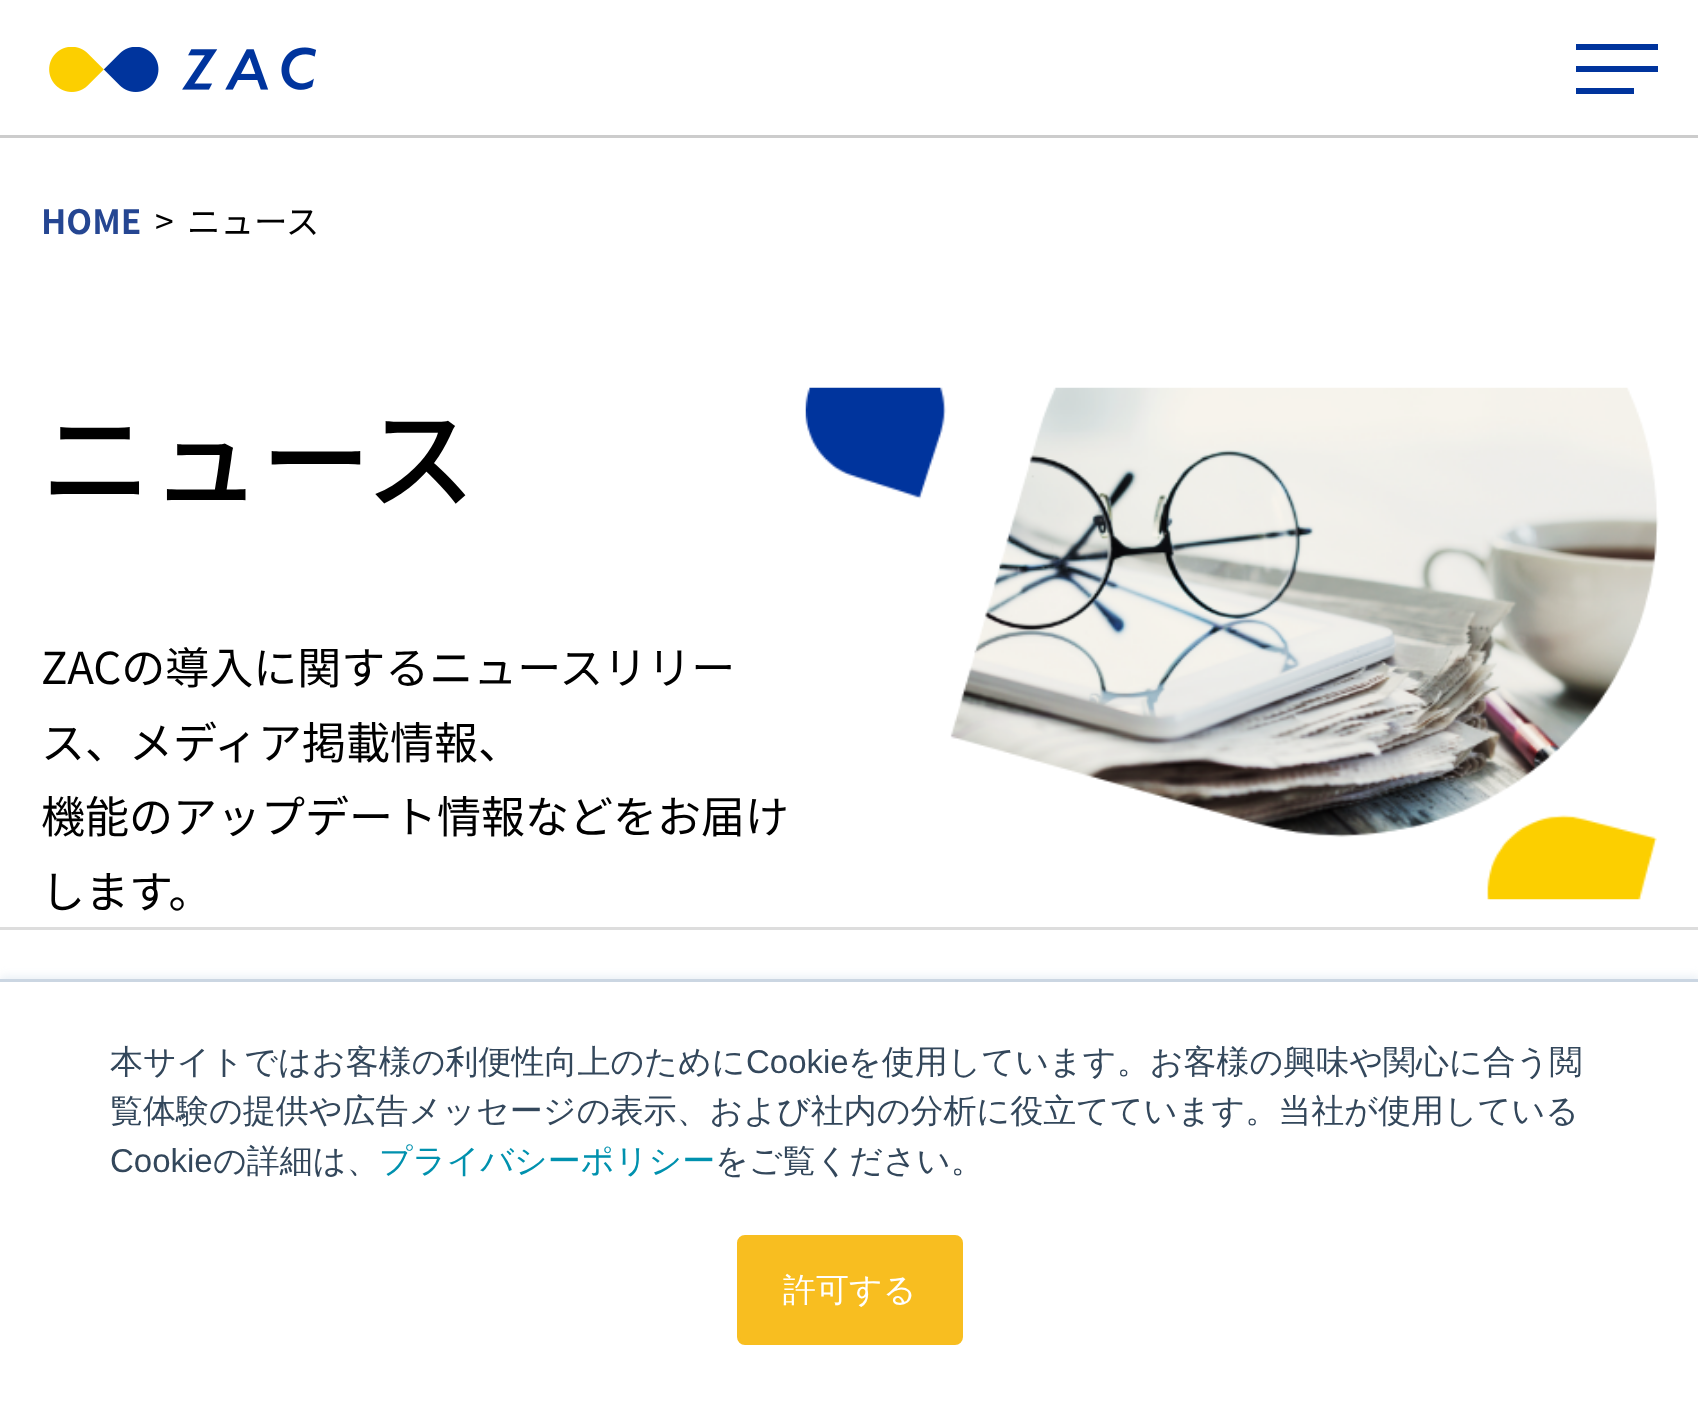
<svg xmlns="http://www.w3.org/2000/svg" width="1698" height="1414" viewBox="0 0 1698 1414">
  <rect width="100%" height="100%" fill="#fff"/>
  <path d="M0 135h1698v3H0z" fill="#ccc"/>
  <image x="49" y="47" width="267" height="45" href="img/1.png"/>
  <path d="M1576 66h82v6H1576z" fill="#00349d"/>
  <path d="M1576 44h82v6H1576z" fill="#00349d"/>
  <path d="M1576 88h58v6H1576z" fill="#00349d"/>
  <path d="M0 927h1698v3H0z" fill="#ddd"/>
  <image x="805" y="387" width="854" height="513" href="img/2.png"/>
  <path d="M0 976h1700v438H0z" fill="#eaf0f6" filter="blur(4px)"/>
  <path d="M0 982h1698v432H0z" fill="#fff"/>
  <path d="M0 979h1698v3H0z" fill="#cbd6e2"/>
  <rect x="738.5" y="1236.5" width="223" height="107" rx="6.5" fill="#f8be20" stroke="#f8be20" stroke-width="3"/>
  <text x="41" y="234" font-family="Noto Sans JP" font-size="33.5" font-weight="bold" fill="#254692">HOME</text>
  <g font-family="Noto Sans JP" font-size="33.5" fill="#000">
    <text x="155" y="234">&gt;</text>
    <text x="187" y="234">ニュース</text>
  </g>
  <text x="41" y="500" font-family="Noto Sans JP" font-size="110" font-weight="500" fill="#000">ニュース</text>
  <g font-family="Noto Sans JP" font-size="44" fill="#000">
    <text x="41" y="684">ZACの導入に関するニュースリリー</text>
    <text x="41" y="759">ス、メディア掲載情報、</text>
    <text x="41" y="833">機能のアップデート情報などをお届け</text>
    <text x="41" y="908">します。</text>
  </g>
  <text x="110" y="1073" font-family="WenQuanYi Zen Hei" font-size="33" font-weight="500" fill="#33475b">本サイトではお客様の利便性向上のために</text>
  <text x="746" y="1073" font-family="Liberation Sans" font-size="33" fill="#33475b">Cookie</text>
  <g font-family="WenQuanYi Zen Hei" font-size="33" font-weight="500" fill="#33475b">
    <text x="848" y="1073">を使用しています。お客様の興味や関心に合う閲</text>
    <text x="110" y="1122">覧体験の提供や広告メッセージの表示、および社内の分析に役立てています。当社が使用している</text>
  </g>
  <text x="110" y="1172" font-family="Liberation Sans" font-size="33" fill="#33475b">Cookie</text>
  <text x="213" y="1172" font-family="WenQuanYi Zen Hei" font-size="33" font-weight="500" fill="#33475b">の詳細は、</text>
  <text x="379" y="1172" font-family="WenQuanYi Zen Hei" font-size="33" font-weight="500" fill="#0091ae">プライバシーポリシー</text>
  <text x="715" y="1172" font-family="WenQuanYi Zen Hei" font-size="33" font-weight="500" fill="#33475b">をご覧ください。</text>
  <text x="783" y="1301" font-family="WenQuanYi Zen Hei" font-size="33" font-weight="500" fill="#fff">許可する</text>
</svg>
